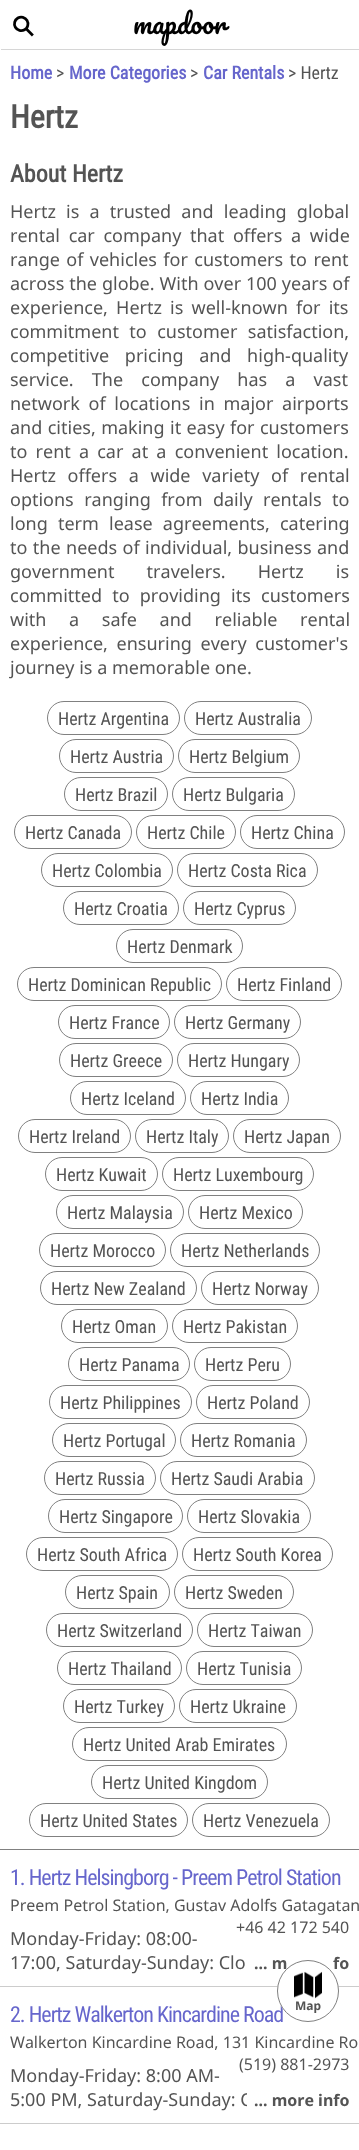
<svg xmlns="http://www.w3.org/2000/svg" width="359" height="2150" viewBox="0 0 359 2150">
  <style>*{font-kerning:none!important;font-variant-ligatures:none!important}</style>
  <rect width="100%" height="100%" fill="#fff"/>
  <path d="M1 49h358v1H1z" fill="#d6d6d6"/>
  <rect x="47.5" y="701.5" width="132" height="33" rx="16.5" fill="none" stroke="#808080"/>
  <rect x="184.5" y="701.5" width="127" height="33" rx="16.5" fill="none" stroke="#808080"/>
  <rect x="59.5" y="739.5" width="114" height="33" rx="16.5" fill="none" stroke="#808080"/>
  <rect x="178.5" y="739.5" width="121" height="33" rx="16.5" fill="none" stroke="#808080"/>
  <rect x="64.5" y="777.5" width="103" height="33" rx="16.5" fill="none" stroke="#808080"/>
  <rect x="172.5" y="777.5" width="122" height="33" rx="16.5" fill="none" stroke="#808080"/>
  <rect x="14.5" y="815.5" width="117" height="33" rx="16.5" fill="none" stroke="#808080"/>
  <rect x="136.5" y="815.5" width="99" height="33" rx="16.5" fill="none" stroke="#808080"/>
  <rect x="240.5" y="815.5" width="104" height="33" rx="16.5" fill="none" stroke="#808080"/>
  <rect x="41.5" y="853.5" width="131" height="33" rx="16.5" fill="none" stroke="#808080"/>
  <rect x="177.5" y="853.5" width="140" height="33" rx="16.5" fill="none" stroke="#808080"/>
  <rect x="63.5" y="891.5" width="115" height="33" rx="16.5" fill="none" stroke="#808080"/>
  <rect x="183.5" y="891.5" width="112" height="33" rx="16.5" fill="none" stroke="#808080"/>
  <rect x="116.5" y="929.5" width="126" height="33" rx="16.5" fill="none" stroke="#808080"/>
  <rect x="17.5" y="967.5" width="204" height="33" rx="16.5" fill="none" stroke="#808080"/>
  <rect x="226.5" y="967.5" width="115" height="33" rx="16.5" fill="none" stroke="#808080"/>
  <rect x="58.5" y="1005.5" width="111" height="33" rx="16.5" fill="none" stroke="#808080"/>
  <rect x="174.5" y="1005.5" width="126" height="33" rx="16.5" fill="none" stroke="#808080"/>
  <rect x="59.5" y="1043.5" width="113" height="33" rx="16.5" fill="none" stroke="#808080"/>
  <rect x="177.5" y="1043.5" width="122" height="33" rx="16.5" fill="none" stroke="#808080"/>
  <rect x="70.5" y="1081.5" width="115" height="33" rx="16.5" fill="none" stroke="#808080"/>
  <rect x="190.5" y="1081.5" width="98" height="33" rx="16.5" fill="none" stroke="#808080"/>
  <rect x="18.5" y="1119.5" width="112" height="33" rx="16.5" fill="none" stroke="#808080"/>
  <rect x="135.5" y="1119.5" width="93" height="33" rx="16.5" fill="none" stroke="#808080"/>
  <rect x="233.5" y="1119.5" width="107" height="33" rx="16.5" fill="none" stroke="#808080"/>
  <rect x="45.5" y="1157.5" width="112" height="33" rx="16.5" fill="none" stroke="#808080"/>
  <rect x="162.5" y="1157.5" width="151" height="33" rx="16.5" fill="none" stroke="#808080"/>
  <rect x="56.5" y="1195.5" width="127" height="33" rx="16.5" fill="none" stroke="#808080"/>
  <rect x="188.5" y="1195.5" width="114" height="33" rx="16.5" fill="none" stroke="#808080"/>
  <rect x="39.5" y="1233.5" width="126" height="33" rx="16.5" fill="none" stroke="#808080"/>
  <rect x="170.5" y="1233.5" width="149" height="33" rx="16.5" fill="none" stroke="#808080"/>
  <rect x="40.5" y="1271.5" width="156" height="33" rx="16.5" fill="none" stroke="#808080"/>
  <rect x="201.5" y="1271.5" width="117" height="33" rx="16.5" fill="none" stroke="#808080"/>
  <rect x="61.5" y="1309.5" width="106" height="33" rx="16.5" fill="none" stroke="#808080"/>
  <rect x="172.5" y="1309.5" width="125" height="33" rx="16.5" fill="none" stroke="#808080"/>
  <rect x="68.5" y="1347.5" width="121" height="33" rx="16.5" fill="none" stroke="#808080"/>
  <rect x="194.5" y="1347.5" width="96" height="33" rx="16.5" fill="none" stroke="#808080"/>
  <rect x="49.5" y="1385.5" width="142" height="33" rx="16.5" fill="none" stroke="#808080"/>
  <rect x="196.5" y="1385.5" width="113" height="33" rx="16.5" fill="none" stroke="#808080"/>
  <rect x="52.5" y="1423.5" width="123" height="33" rx="16.5" fill="none" stroke="#808080"/>
  <rect x="180.5" y="1423.5" width="126" height="33" rx="16.5" fill="none" stroke="#808080"/>
  <rect x="44.5" y="1461.5" width="111" height="33" rx="16.5" fill="none" stroke="#808080"/>
  <rect x="160.5" y="1461.5" width="154" height="33" rx="16.5" fill="none" stroke="#808080"/>
  <rect x="48.5" y="1499.5" width="134" height="33" rx="16.5" fill="none" stroke="#808080"/>
  <rect x="187.5" y="1499.5" width="123" height="33" rx="16.5" fill="none" stroke="#808080"/>
  <rect x="26.5" y="1537.5" width="151" height="33" rx="16.5" fill="none" stroke="#808080"/>
  <rect x="182.5" y="1537.5" width="150" height="33" rx="16.5" fill="none" stroke="#808080"/>
  <rect x="65.5" y="1575.5" width="104" height="33" rx="16.5" fill="none" stroke="#808080"/>
  <rect x="174.5" y="1575.5" width="119" height="33" rx="16.5" fill="none" stroke="#808080"/>
  <rect x="46.5" y="1613.5" width="146" height="33" rx="16.5" fill="none" stroke="#808080"/>
  <rect x="197.5" y="1613.5" width="115" height="33" rx="16.5" fill="none" stroke="#808080"/>
  <rect x="57.5" y="1651.5" width="124" height="33" rx="16.5" fill="none" stroke="#808080"/>
  <rect x="186.5" y="1651.5" width="115" height="33" rx="16.5" fill="none" stroke="#808080"/>
  <rect x="63.5" y="1689.5" width="111" height="33" rx="16.5" fill="none" stroke="#808080"/>
  <rect x="179.5" y="1689.5" width="117" height="33" rx="16.5" fill="none" stroke="#808080"/>
  <rect x="72.5" y="1727.5" width="214" height="33" rx="16.5" fill="none" stroke="#808080"/>
  <rect x="91.5" y="1765.5" width="176" height="33" rx="16.5" fill="none" stroke="#808080"/>
  <rect x="29.5" y="1803.5" width="158" height="33" rx="16.5" fill="none" stroke="#808080"/>
  <rect x="192.5" y="1803.5" width="137" height="33" rx="16.5" fill="none" stroke="#808080"/>
  <path d="M0 1849h359v1H0z" fill="#808080"/>
  <path d="M0 1986h359v1H0z" fill="#ccc"/>
  <path d="M0 2123h359v1H0z" fill="#ccc"/>
  <text x="16" y="12" transform="rotate(105 16 12)" font-family="DejaVu Sans" font-size="32" fill="#000">☌</text>
  <text x="133" y="34" font-family="Pacifico" font-size="26" fill="#000">mapdoor</text>
  <text x="10" y="79" font-family="Roboto Condensed" font-size="18" font-weight="bold" fill="#66c">Home</text>
  <text x="56" y="79" font-family="Roboto Condensed" font-size="18" fill="#545454">&gt;</text>
  <text x="69" y="79" font-family="Roboto Condensed" font-size="18" font-weight="bold" fill="#66c">More Categories</text>
  <text x="190" y="79" font-family="Roboto Condensed" font-size="18" fill="#545454">&gt;</text>
  <text x="203" y="79" font-family="Roboto Condensed" font-size="18" font-weight="bold" fill="#66c">Car Rentals</text>
  <text x="288" y="79" font-family="Roboto Condensed" font-size="18" fill="#545454">&gt; Hertz</text>
  <text x="10" y="128" font-family="Roboto Condensed" font-size="32" font-weight="bold" fill="#545454">Hertz</text>
  <text x="10" y="182" font-family="Roboto Condensed" font-size="24" font-weight="bold" fill="#545454">About Hertz</text>
  <g font-family="Noto Sans" font-size="18" fill="#545454">
    <text x="10" y="218" word-spacing="5.5">Hertz is a trusted and leading global</text>
    <text x="10" y="242" word-spacing="4">rental car company that offers a wide</text>
    <text x="10" y="266" word-spacing="1.75">range of vehicles for customers to rent</text>
    <text x="10" y="290" word-spacing="0.25">across the globe. With over 100 years of</text>
    <text x="10" y="314" word-spacing="3.5">experience, Hertz is well-known for its</text>
    <text x="10" y="338" word-spacing="5.75">commitment to customer satisfaction,</text>
    <text x="10" y="362" word-spacing="11">competitive pricing and high-quality</text>
    <text x="10" y="386" word-spacing="13.5">service. The company has a vast</text>
    <text x="10" y="410" word-spacing="4">network of locations in major airports</text>
    <text x="10" y="434" word-spacing="0.75">and cities, making it easy for customers</text>
    <text x="10" y="458" word-spacing="3.5">to rent a car at a convenient location.</text>
    <text x="10" y="482" word-spacing="7">Hertz offers a wide variety of rental</text>
    <text x="10" y="506" word-spacing="5.75">options ranging from daily rentals to</text>
    <text x="10" y="530" word-spacing="5.5">long term lease agreements, catering</text>
    <text x="10" y="554" word-spacing="0.75">to the needs of individual, business and</text>
    <text x="10" y="578" word-spacing="27.5">government travelers. Hertz is</text>
    <text x="10" y="602" word-spacing="5.5">committed to providing its customers</text>
    <text x="10" y="626" word-spacing="18">with a safe and reliable rental</text>
    <text x="10" y="650" word-spacing="4">experience, ensuring every customer's</text>
    <text x="10" y="674">journey is a memorable one.</text>
  </g>
  <g font-family="Roboto Condensed" font-size="18" fill="#545454">
    <text x="58" y="725">Hertz Argentina</text>
    <text x="195" y="725">Hertz Australia</text>
    <text x="70" y="763">Hertz Austria</text>
    <text x="189" y="763">Hertz Belgium</text>
    <text x="75" y="801">Hertz Brazil</text>
    <text x="183" y="801">Hertz Bulgaria</text>
    <text x="25" y="839">Hertz Canada</text>
    <text x="147" y="839">Hertz Chile</text>
    <text x="251" y="839">Hertz China</text>
    <text x="52" y="877">Hertz Colombia</text>
    <text x="188" y="877">Hertz Costa Rica</text>
    <text x="74" y="915">Hertz Croatia</text>
    <text x="194" y="915">Hertz Cyprus</text>
    <text x="127" y="953">Hertz Denmark</text>
    <text x="28" y="991">Hertz Dominican Republic</text>
    <text x="237" y="991">Hertz Finland</text>
    <text x="69" y="1029">Hertz France</text>
    <text x="185" y="1029">Hertz Germany</text>
    <text x="70" y="1067">Hertz Greece</text>
    <text x="188" y="1067">Hertz Hungary</text>
    <text x="81" y="1105">Hertz Iceland</text>
    <text x="201" y="1105">Hertz India</text>
    <text x="29" y="1143">Hertz Ireland</text>
    <text x="146" y="1143">Hertz Italy</text>
    <text x="244" y="1143">Hertz Japan</text>
    <text x="56" y="1181">Hertz Kuwait</text>
    <text x="173" y="1181">Hertz Luxembourg</text>
    <text x="67" y="1219">Hertz Malaysia</text>
    <text x="199" y="1219">Hertz Mexico</text>
    <text x="50" y="1257">Hertz Morocco</text>
    <text x="181" y="1257">Hertz Netherlands</text>
    <text x="51" y="1295">Hertz New Zealand</text>
    <text x="212" y="1295">Hertz Norway</text>
    <text x="72" y="1333">Hertz Oman</text>
    <text x="183" y="1333">Hertz Pakistan</text>
    <text x="79" y="1371">Hertz Panama</text>
    <text x="205" y="1371">Hertz Peru</text>
    <text x="60" y="1409">Hertz Philippines</text>
    <text x="207" y="1409">Hertz Poland</text>
    <text x="63" y="1447">Hertz Portugal</text>
    <text x="191" y="1447">Hertz Romania</text>
    <text x="55" y="1485">Hertz Russia</text>
    <text x="171" y="1485">Hertz Saudi Arabia</text>
    <text x="59" y="1523">Hertz Singapore</text>
    <text x="198" y="1523">Hertz Slovakia</text>
    <text x="37" y="1561">Hertz South Africa</text>
    <text x="193" y="1561">Hertz South Korea</text>
    <text x="76" y="1599">Hertz Spain</text>
    <text x="185" y="1599">Hertz Sweden</text>
    <text x="57" y="1637">Hertz Switzerland</text>
    <text x="208" y="1637">Hertz Taiwan</text>
    <text x="68" y="1675">Hertz Thailand</text>
    <text x="197" y="1675">Hertz Tunisia</text>
    <text x="74" y="1713">Hertz Turkey</text>
    <text x="190" y="1713">Hertz Ukraine</text>
    <text x="83" y="1751">Hertz United Arab Emirates</text>
    <text x="102" y="1789">Hertz United Kingdom</text>
    <text x="40" y="1827">Hertz United States</text>
    <text x="203" y="1827">Hertz Venezuela</text>
  </g>
  <text x="10" y="1885" font-family="Roboto Condensed" font-size="22" letter-spacing="-1" fill="#66c">1. Hertz Helsingborg - Preem Petrol Station</text>
  <g font-family="Noto Sans" font-size="16" fill="#545454">
    <text x="10" y="1911">Preem Petrol Station, Gustav Adolfs Gatagatan</text>
    <text x="236" y="1933">+46 42 172 540</text>
  </g>
  <g font-family="Noto Sans" font-size="18" fill="#545454">
    <text x="10" y="1945">Monday-Friday: 08:00-</text>
    <text x="10" y="1969">17:00, Saturday-Sunday: Clo</text>
  </g>
  <g font-family="Noto Sans" font-size="16" font-weight="bold" fill="#545454">
    <text x="254" y="1969">... m</text>
    <text x="333" y="1969">fo</text>
  </g>
  <text x="10" y="2022" font-family="Roboto Condensed" font-size="22" letter-spacing="-1" fill="#66c">2. Hertz Walkerton Kincardine Road</text>
  <circle cx="308" cy="1991" r="31" fill="#fff"/>
  <image x="294" y="1971" width="28" height="28" href="img/1.png"/>
  <circle cx="308" cy="1991" r="30.5" fill="none" stroke="#808080"/>
  <text x="295" y="2010" font-family="Noto Sans" font-size="12" font-weight="bold" fill="#545454">Map</text>
  <g font-family="Noto Sans" font-size="16" fill="#545454">
    <text x="10" y="2048">Walkerton Kincardine Road, 131 Kincardine Ro</text>
    <text x="239" y="2070">(519) 881-2973</text>
  </g>
  <g font-family="Noto Sans" font-size="18" fill="#545454">
    <text x="10" y="2082">Monday-Friday: 8:00 AM-</text>
    <text x="10" y="2106">5:00 PM, Saturday-Sunday: C</text>
  </g>
  <path d="M247 2093h4v14H247z" fill="#fff"/>
  <text x="254" y="2106" font-family="Noto Sans" font-size="16" font-weight="bold" fill="#545454">... more info</text>
</svg>
